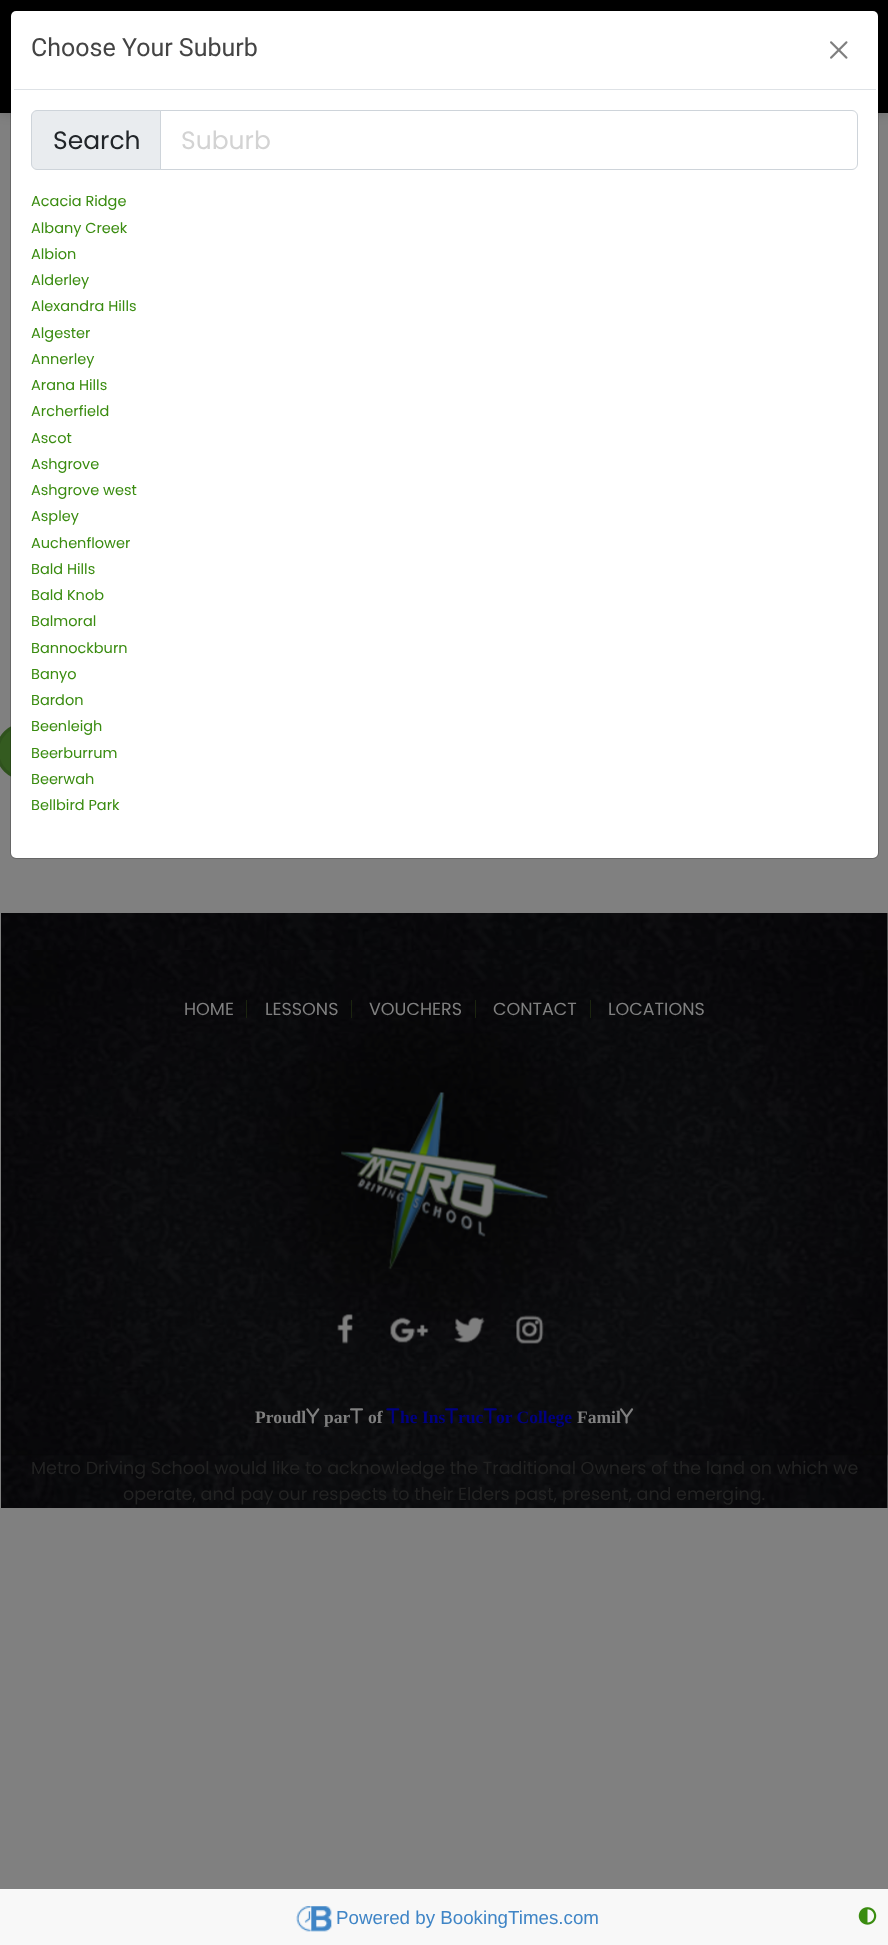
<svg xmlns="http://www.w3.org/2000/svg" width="888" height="1945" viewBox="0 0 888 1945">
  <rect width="100%" height="100%" fill="#808080"/>
  <path d="M0 0h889v113H0z" fill="#0000002e" filter="blur(6px)"/>
  <path d="M0 0h888v113H0z" fill="#000"/>
  <rect x="-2.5" y="724.5" width="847" height="54" rx="27" fill="#345b20" stroke="#2f521d" stroke-width="3"/>
  <rect x="11" y="11" width="867" height="847" rx="5" fill="#fff"/>
  <rect x="10.5" y="10.5" width="868" height="848" rx="5.5" fill="none" stroke="#00000033"/>
  <path d="M14 89h862v1H14z" fill="#dee2e6"/>
  <image x="830" y="41" width="18" height="18" href="img/1.png"/>
  <path d="M37 110.5H160.5V169.5H37C34 169.5 31.5 167 31.5 164V116C31.5 113 34 110.5 37 110.5Z" fill="#e9ecef" stroke="#ced4da"/>
  <path d="M160.5 110.5H852C855 110.5 857.5 113 857.5 116V164C857.5 167 855 169.5 852 169.5H160.5Z" fill="none" stroke="#ced4da"/>
  <image x="1" y="913" width="887" height="595" href="img/2.png"/>
  <image x="1" y="950" width="887" height="506" href="img/3.png"/>
  <path d="M246 1000h1v18H246z" fill="#1b240f"/>
  <path d="M351 1000h1v18H351z" fill="#1b240f"/>
  <path d="M475 1000h1v18H475z" fill="#1b240f"/>
  <path d="M590 1000h1v18H590z" fill="#1b240f"/>
  <image x="341" y="1092" width="208" height="178" href="img/4.png"/>
  <image x="337" y="1314" width="16" height="30" href="img/5.png"/>
  <image x="390" y="1317" width="39" height="26" href="img/6.png"/>
  <image x="454" y="1316" width="31" height="27" href="img/7.png"/>
  <image x="516" y="1315" width="28" height="29" href="img/8.png"/>
  <image x="306" y="1408" width="14" height="16" href="img/9.png"/>
  <image x="350" y="1408" width="14" height="16" href="img/10.png"/>
  <image x="386" y="1408" width="14" height="16" href="img/11.png"/>
  <image x="445" y="1408" width="14" height="16" href="img/12.png"/>
  <image x="483" y="1408" width="14" height="16" href="img/13.png"/>
  <image x="620" y="1408" width="14" height="16" href="img/14.png"/>
  <path d="M0 1889h888v56H0z" fill="#f8f8f8"/>
  <image x="296" y="1906" width="36" height="26" href="img/15.png"/>
  <image x="858" y="1907" width="19" height="18" href="img/16.png"/>
  <text x="31" y="56" font-family="Roboto" font-size="25" fill="#444">Choose Your Suburb</text>
  <text x="53" y="149" font-family="Poppins" font-size="25" fill="#212529">Search</text>
  <text x="181" y="149" font-family="Poppins" font-size="25" fill="#d3d3d3">Suburb</text>
  <g font-family="Poppins" font-size="14.5" fill="#3a8c10">
    <text x="31" y="206">Acacia Ridge</text>
    <text x="31" y="233">Albany Creek</text>
    <text x="31" y="259">Albion</text>
    <text x="31" y="285">Alderley</text>
    <text x="31" y="311">Alexandra Hills</text>
    <text x="31" y="338">Algester</text>
    <text x="31" y="364">Annerley</text>
    <text x="31" y="390">Arana Hills</text>
    <text x="31" y="416">Archerfield</text>
    <text x="31" y="443">Ascot</text>
    <text x="31" y="469">Ashgrove</text>
    <text x="31" y="495">Ashgrove west</text>
    <text x="31" y="521">Aspley</text>
    <text x="31" y="548">Auchenflower</text>
    <text x="31" y="574">Bald Hills</text>
    <text x="31" y="600">Bald Knob</text>
    <text x="31" y="626">Balmoral</text>
    <text x="31" y="653">Bannockburn</text>
    <text x="31" y="679">Banyo</text>
    <text x="31" y="705">Bardon</text>
    <text x="31" y="731">Beenleigh</text>
    <text x="31" y="758">Beerburrum</text>
    <text x="31" y="784">Beerwah</text>
    <text x="31" y="810">Bellbird Park</text>
  </g>
  <g font-family="Poppins" font-size="17.5" fill="#808080">
    <text x="184" y="1015">HOME</text>
    <text x="265" y="1015">LESSONS</text>
    <text x="369" y="1015">VOUCHERS</text>
    <text x="493" y="1015">CONTACT</text>
    <text x="608" y="1015">LOCATIONS</text>
  </g>
  <g font-family="Liberation Serif" font-size="17.5" font-weight="bold" fill="#808080">
    <text x="255" y="1423">Proudl</text>
    <text x="324" y="1423">par</text>
    <text x="368" y="1423">of</text>
  </g>
  <g font-family="Liberation Serif" font-size="17.5" font-weight="bold" fill="#000080">
    <text x="400" y="1423">he Ins</text>
    <text x="458" y="1423">ruc</text>
    <text x="496" y="1423">or College</text>
  </g>
  <text x="577" y="1423" font-family="Liberation Serif" font-size="17.5" font-weight="bold" fill="#808080">Famil</text>
  <g font-family="Poppins" font-size="17.5" fill="#222">
    <text x="31" y="1474">Metro Driving School would like to acknowledge the Traditional Owners of the land on which we</text>
    <text x="123" y="1500">operate, and pay our respects to their Elders past, present, and emerging.</text>
  </g>
  <text x="336" y="1924" font-family="Liberation Sans" font-size="18.75" fill="#3f85c6">Powered by BookingTimes.com</text>
</svg>
